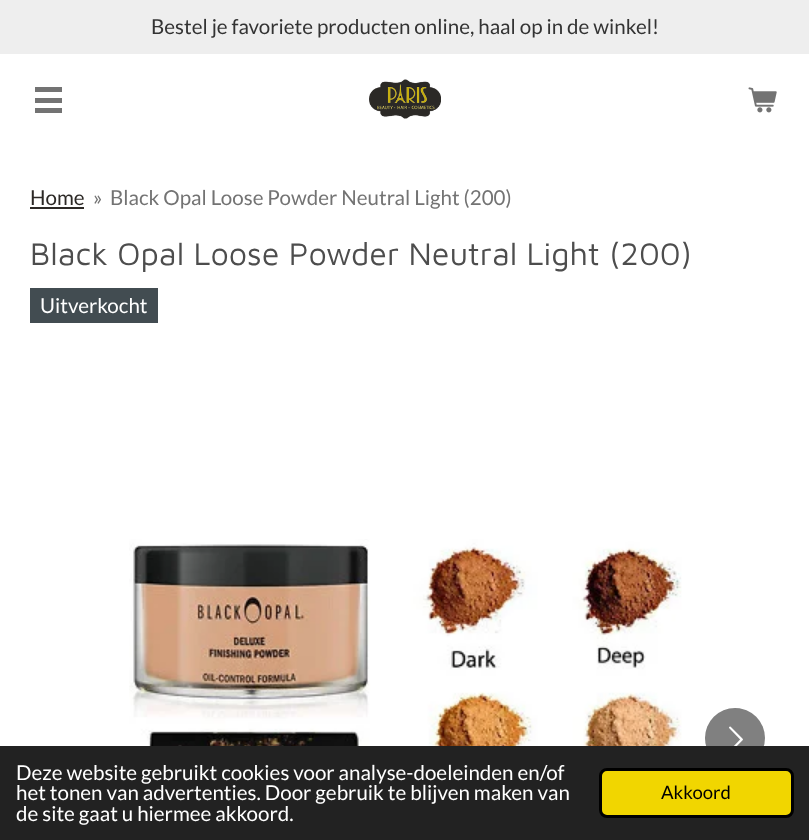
<svg xmlns="http://www.w3.org/2000/svg" width="809" height="840" viewBox="0 0 809 840">
  <rect width="100%" height="100%" fill="#fff"/>
  <path d="M0 0h809v54H0z" fill="#eee"/>
  <path d="M35 98h27v5H35z" fill="#737373"/>
  <path d="M35 87h27v5H35z" fill="#737373"/>
  <path d="M35 108h27v5H35z" fill="#737373"/>
  <image x="369" y="79" width="72" height="40" href="img/1.png"/>
  <image x="748" y="87" width="29" height="26" href="img/2.png"/>
  <path d="M30 207h54v2H30z" fill="#2c2926"/>
  <path d="M30 288h128v35H30z" fill="#424c51"/>
  <image x="129" y="539" width="553" height="207" href="img/3.png"/>
  <circle cx="735" cy="738" r="30" fill="#808080"/>
  <image x="729" y="726" width="14" height="20" href="img/4.png"/>
  <path d="M0 746h809v94H0z" fill="#222"/>
  <rect x="600.5" y="769.5" width="192" height="47" rx="6.5" fill="#f1d600" stroke="#000" stroke-width="3"/>
  <text x="151" y="34" font-family="Lato" font-size="20.55" fill="#333">Bestel je favoriete producten online, haal op in de winkel!</text>
  <text x="30" y="205" font-family="Lato" font-size="20.55" fill="#2c2926">Home</text>
  <g font-family="Lato" font-size="20.55" fill="#737373">
    <text x="93" y="205">»</text>
    <text x="110" y="205">Black Opal Loose Powder Neutral Light (200)</text>
  </g>
  <text x="30" y="265" font-family="Maven Pro" font-size="32.25" fill="#4d4d4d">Black Opal Loose Powder Neutral Light (200)</text>
  <g font-family="Lato" font-size="20.55" fill="#fff">
    <text x="40" y="313">Uitverkocht</text>
    <text x="16" y="780">Deze website gebruikt cookies voor analyse-doeleinden en/of</text>
    <text x="16" y="800">het tonen van advertenties. Door gebruik te blijven maken van</text>
    <text x="16" y="821">de site gaat u hiermee akkoord.</text>
  </g>
  <text x="661" y="799" font-family="Lato" font-size="18.5" fill="#000">Akkoord</text>
</svg>
